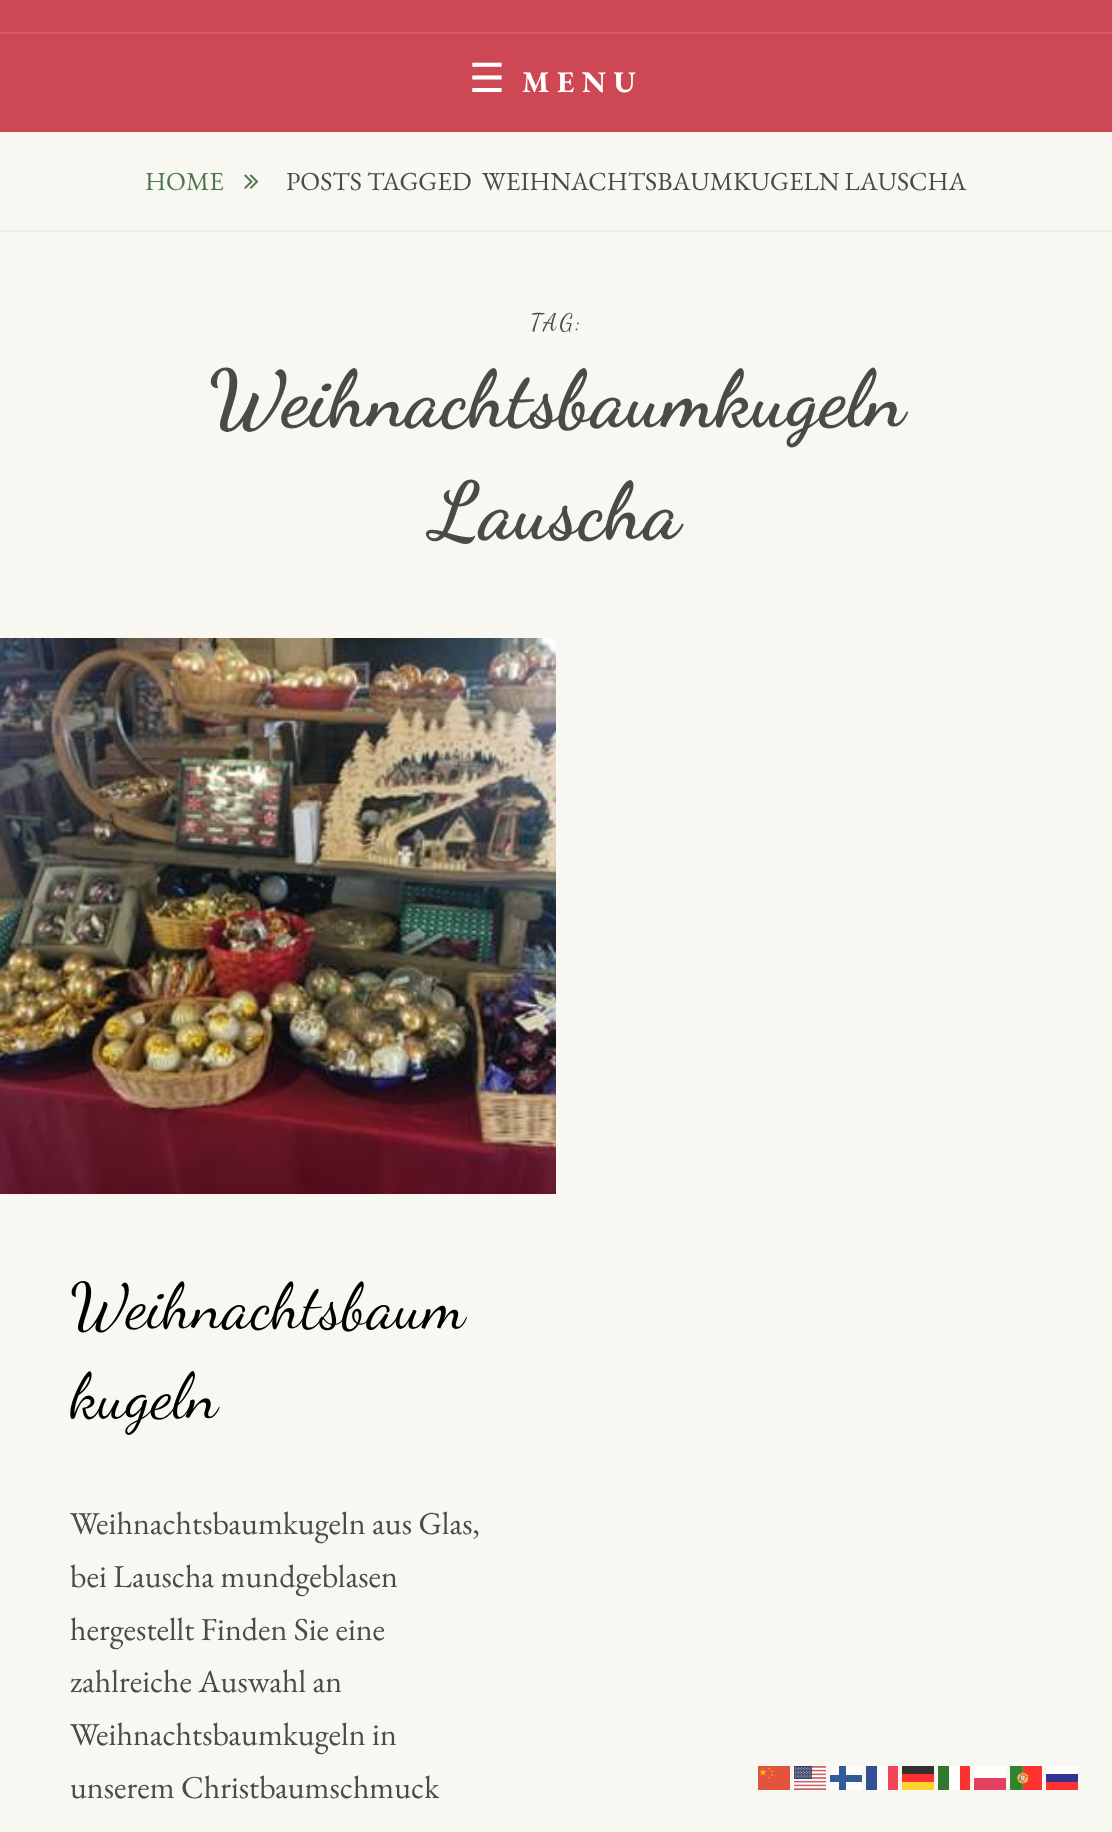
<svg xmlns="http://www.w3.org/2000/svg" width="1112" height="1832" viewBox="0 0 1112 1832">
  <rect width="100%" height="100%" fill="#f9f7f1"/>
  <path d="M0 0h1112v132H0z" fill="#ce4754"/>
  <path d="M0 32h1112v2H0z" fill="#d45d69"/>
  <path d="M0 230h1112v2H0z" fill="#edebe5"/>
  <image x="244" y="174" width="15" height="15" href="img/1.png"/>
  <image x="0" y="638" width="556" height="556" href="img/2.png"/>
  <image x="758" y="1766" width="32" height="24" href="img/3.png"/>
  <image x="794" y="1766" width="32" height="24" href="img/4.png"/>
  <path d="M830 1766h32v24H830z" fill="#fefdfc"/>
  <path d="M830 1775h32v7H830z" fill="#325c97"/>
  <path d="M839 1766h7v24H839z" fill="#325c97"/>
  <path d="M866 1766h11v24H866z" fill="#325096"/>
  <path d="M877 1766h11v24H877z" fill="#fefdfc"/>
  <path d="M888 1766h10v24H888z" fill="#f44557"/>
  <path d="M902 1766h32v8H902z" fill="#323130"/>
  <path d="M938 1766h11v24H938z" fill="#327730"/>
  <path d="M949 1766h11v24H949z" fill="#fefdfc"/>
  <path d="M960 1766h10v24H960z" fill="#fb3130"/>
  <path d="M974 1766h32v12H974z" fill="#fefdfc"/>
  <image x="1010" y="1766" width="32" height="24" href="img/5.png"/>
  <path d="M1046 1766h32v8H1046z" fill="#fefdfc"/>
  <path d="M902 1774h32v8H902z" fill="#fe3130"/>
  <path d="M974 1778h32v12H974z" fill="#e24160"/>
  <path d="M1046 1774h32v8H1046z" fill="#333295"/>
  <path d="M902 1782h32v8H902z" fill="#fed530"/>
  <path d="M1046 1782h32v8H1046z" fill="#fd3231"/>
  <text x="469" y="92" font-family="DejaVu Sans" font-size="40" letter-spacing="7.5" fill="#fff">☰</text>
  <text x="522" y="92" font-family="EB Garamond" font-size="30" font-weight="bold" letter-spacing="7.5" fill="#fff">MENU</text>
  <text x="145" y="190" font-family="EB Garamond" font-size="26" fill="#4c774c">HOME</text>
  <g font-family="EB Garamond" font-size="26" fill="#4b4a48">
    <text x="286" y="190">POSTS TAGGED</text>
    <text x="482" y="190">WEIHNACHTSBAUMKUGELN LAUSCHA</text>
  </g>
  <text x="530" y="330" font-family="Dancing Script" font-size="24" letter-spacing="2.5" fill="#4b4a48">TAG:</text>
  <g font-family="Dancing Script" font-size="80" font-weight="bold" fill="#4b4a48">
    <text x="208" y="425">Weihnachtsbaumkugeln</text>
    <text x="431" y="537">Lauscha</text>
  </g>
  <g font-family="Dancing Script" font-size="64" fill="#000">
    <text x="70" y="1327">Weihnachtsbaum</text>
    <text x="70" y="1417">kugeln</text>
  </g>
  <g font-family="EB Garamond" font-size="32" fill="#4b4a48">
    <text x="70" y="1534">Weihnachtsbaumkugeln aus Glas,</text>
    <text x="70" y="1587">bei Lauscha mundgeblasen</text>
    <text x="70" y="1640">hergestellt Finden Sie eine</text>
    <text x="70" y="1692">zahlreiche Auswahl an</text>
    <text x="70" y="1745">Weihnachtsbaumkugeln in</text>
    <text x="70" y="1798">unserem Christbaumschmuck</text>
  </g>
</svg>
